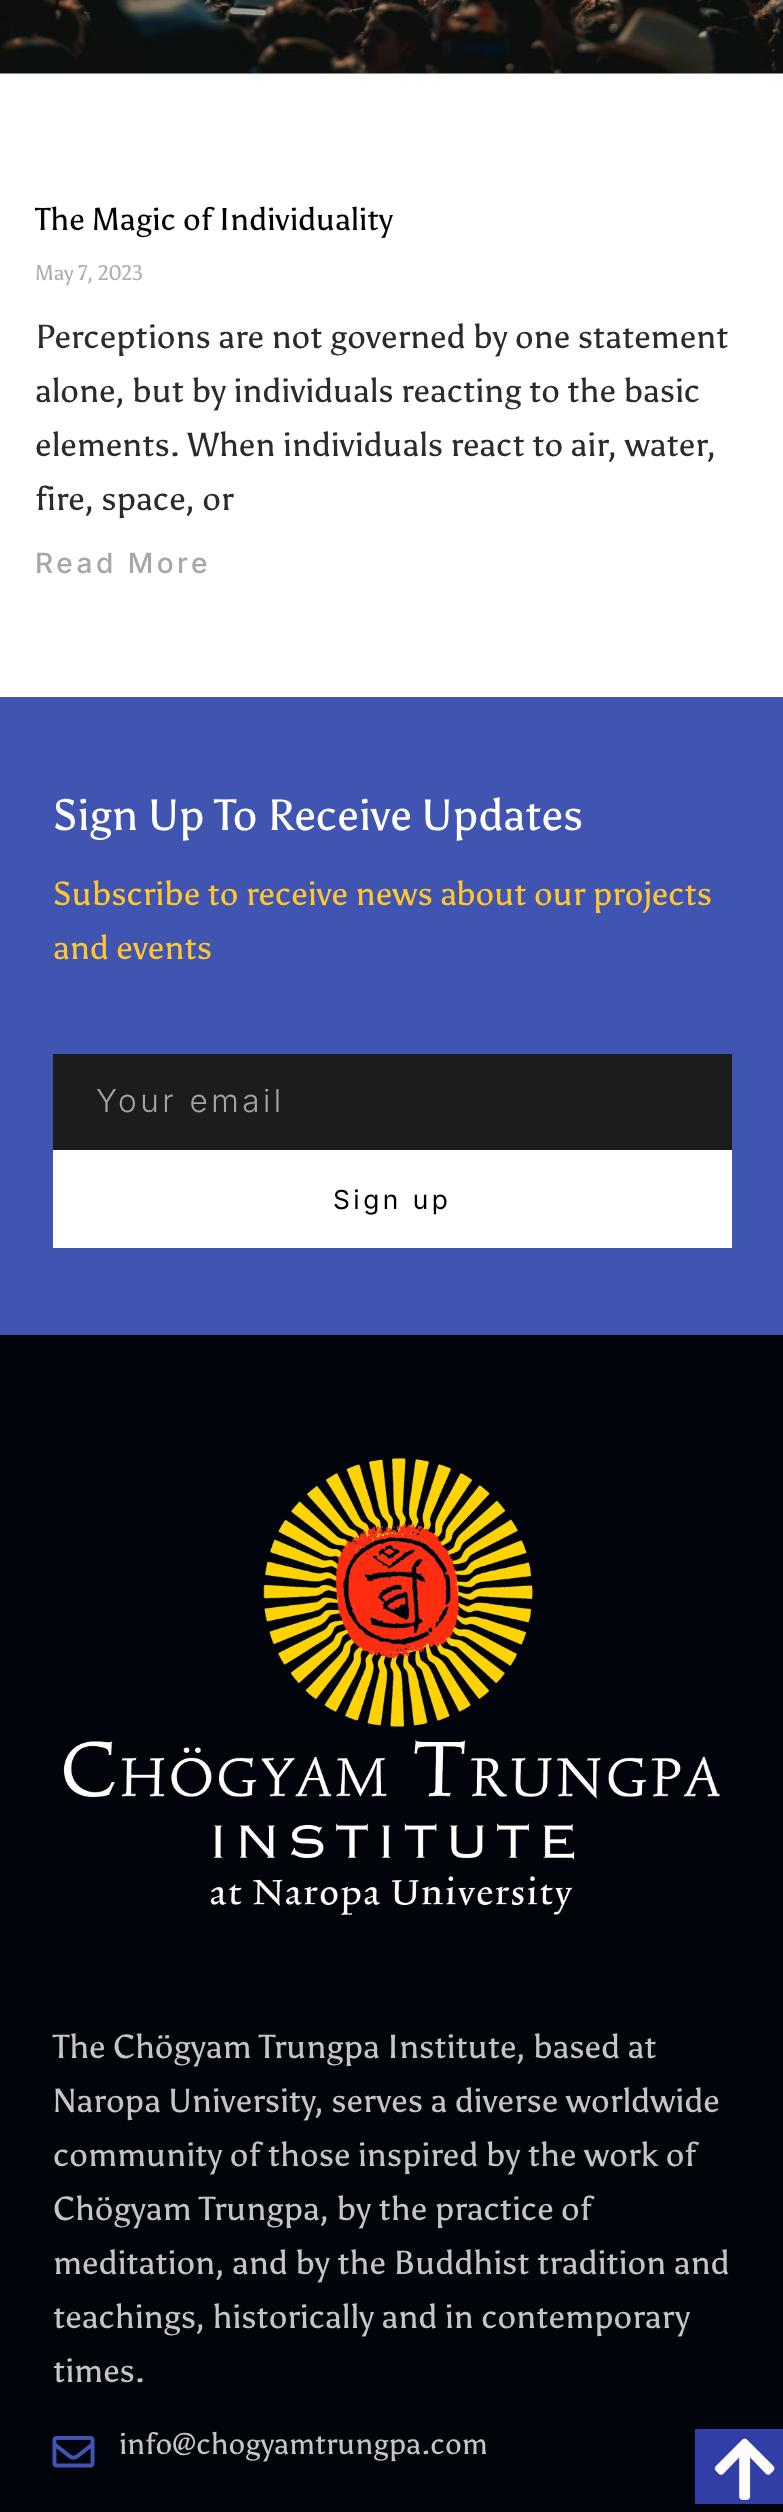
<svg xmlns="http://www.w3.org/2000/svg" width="783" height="2512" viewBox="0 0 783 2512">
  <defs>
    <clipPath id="clip1"><path d="M35 193h714v397H35z"/></clipPath>
  </defs>
  <rect width="100%" height="100%" fill="#fff"/>
  <path d="M0 73h783v1H0z" fill="#b3b3b3"/>
  <image x="0" y="0" width="783" height="74" href="img/1.png"/>
  <path d="M0 697h783v638H0z" fill="#4055b1"/>
  <path d="M53 1054h679v96H53z" fill="#1c1c1c"/>
  <path d="M53 1150h679v98H53z" fill="#fff"/>
  <path d="M0 1335h783v1177H0z" fill="#02040b"/>
  <image x="63" y="1458" width="657" height="458" href="img/2.png"/>
  <image x="52" y="2436" width="43" height="32" href="img/3.png"/>
  <path d="M695 2429h88v75H695z" fill="#313ea5"/>
  <image x="714" y="2438" width="61" height="62" href="img/4.png"/>
  <g clip-path="url(#clip1)">
    <text x="35" y="230" font-family="Asul" font-size="31.5" fill="#02040b">The Magic of Individuality</text>
  </g>
  <text x="35" y="280" font-family="Asul" font-size="21" fill="#adadad">May 7, 2023</text>
  <g font-family="Asul" font-size="33.25" fill="#2b2b2b">
    <text x="35" y="348">Perceptions are not governed by one statement</text>
    <text x="35" y="402">alone, but by individuals reacting to the basic</text>
    <text x="35" y="456">elements. When individuals react to air, water,</text>
    <text x="35" y="510">fire, space, or</text>
  </g>
  <text x="35" y="573" font-family="Inter" font-size="28" font-weight="500" letter-spacing="3.5" fill="#a6a7aa">Read More</text>
  <text x="53" y="830" font-family="Asul" font-size="43.75" fill="#fff">Sign Up To Receive Updates</text>
  <g font-family="Asul" font-size="33.25" fill="#ffc630">
    <text x="53" y="905">Subscribe to receive news about our projects</text>
    <text x="53" y="959">and events</text>
  </g>
  <text x="96" y="1112" font-family="Inter" font-size="31.5" font-weight="300" letter-spacing="3.5" fill="#a4a4a4">Your email</text>
  <text x="333" y="1209" font-family="Inter" font-size="26.25" letter-spacing="3.5" fill="#000">Sign up</text>
  <g font-family="Asul" font-size="33.25" fill="#c3c5cb">
    <text x="53" y="2058">The Chögyam Trungpa Institute, based at</text>
    <text x="53" y="2112">Naropa University, serves a diverse worldwide</text>
    <text x="53" y="2166">community of those inspired by the work of</text>
    <text x="53" y="2220">Chögyam Trungpa, by the practice of</text>
    <text x="53" y="2274">meditation, and by the Buddhist tradition and</text>
    <text x="53" y="2328">teachings, historically and in contemporary</text>
    <text x="53" y="2382">times.</text>
  </g>
  <text x="119" y="2454" font-family="Asul" font-size="29.75" fill="#c3c5cb">info@chogyamtrungpa.com</text>
</svg>
